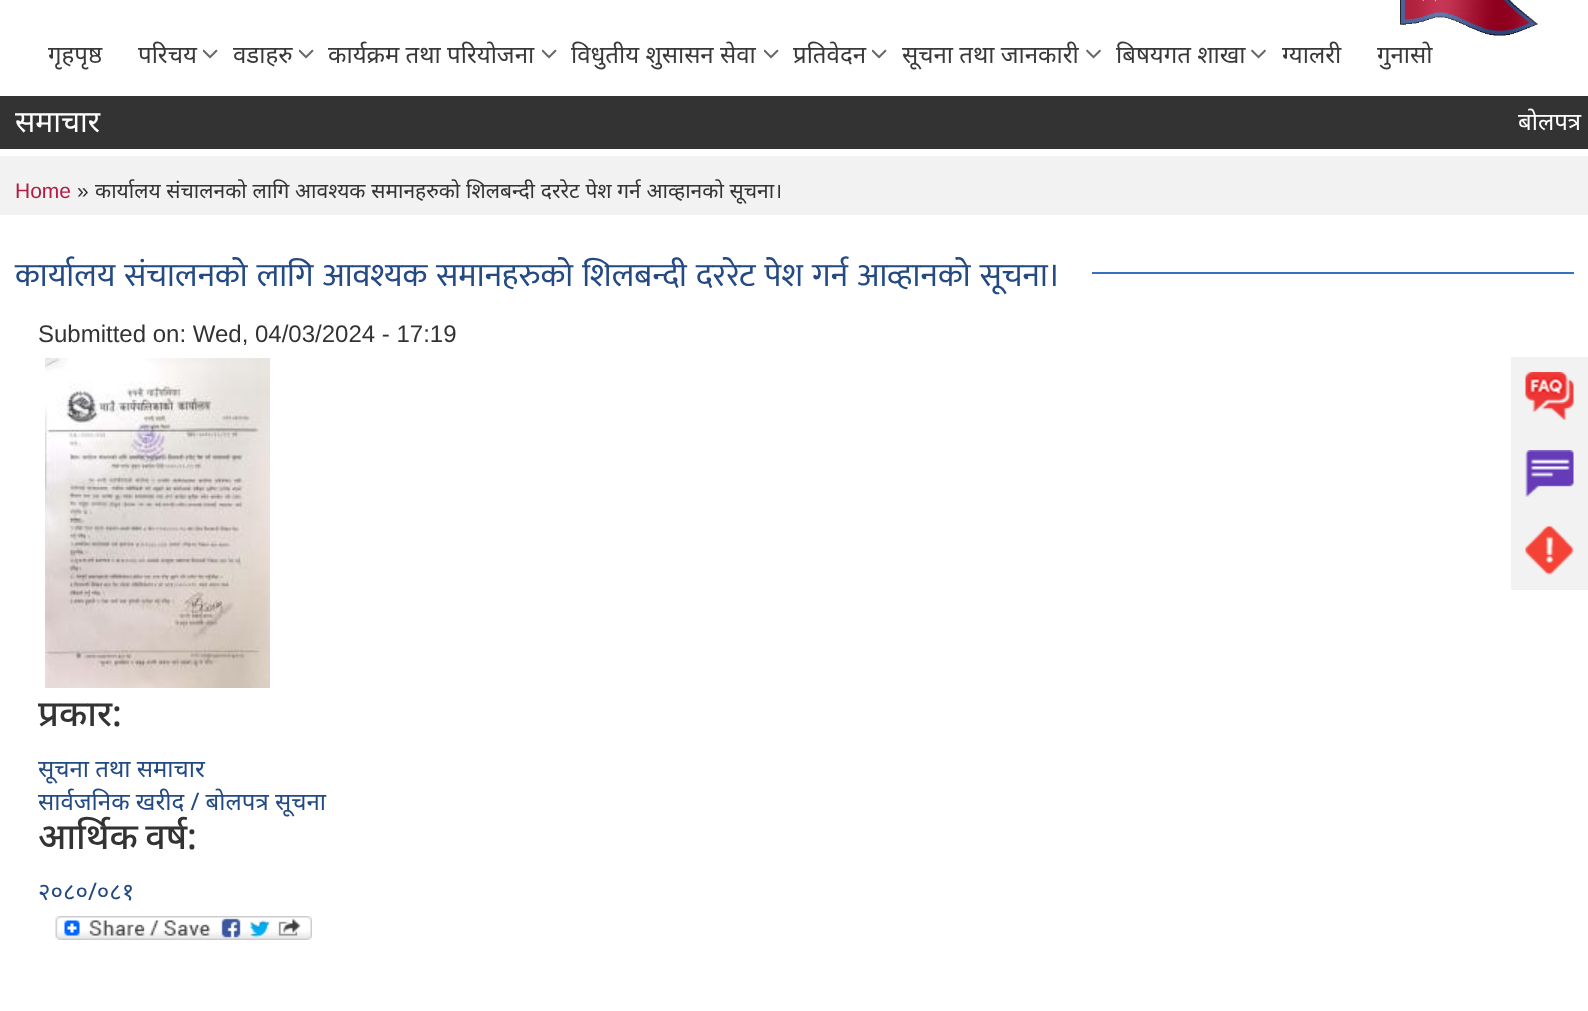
<svg xmlns="http://www.w3.org/2000/svg" width="1588" height="1011" viewBox="0 0 1588 1011">
  <rect width="100%" height="100%" fill="#fff"/>
  <image x="1400" y="0" width="138" height="36" href="img/1.png"/>
  <image x="203" y="49" width="15" height="10" href="img/2.png"/>
  <image x="299" y="49" width="15" height="10" href="img/2.png"/>
  <image x="542" y="49" width="15" height="10" href="img/2.png"/>
  <image x="764" y="49" width="15" height="10" href="img/2.png"/>
  <image x="872" y="49" width="15" height="10" href="img/2.png"/>
  <image x="1086" y="49" width="15" height="10" href="img/3.png"/>
  <image x="1251" y="49" width="15" height="10" href="img/3.png"/>
  <path d="M0 96h1588v53H0z" fill="#333"/>
  <path d="M0 156h1588v59H0z" fill="#f2f2f2"/>
  <path d="M1092 272h482v2H1092z" fill="#376fc2"/>
  <image x="45" y="358" width="225" height="330" href="img/4.png"/>
  <image x="55" y="916" width="257" height="24" href="img/5.png"/>
  <path d="M1511 357h77v233H1511z" fill="#f2f2f2"/>
  <image x="1525" y="372" width="49" height="48" href="img/6.png"/>
  <image x="1525" y="450" width="49" height="47" href="img/7.png"/>
  <image x="1525" y="526" width="49" height="49" href="img/8.png"/>
  <g font-family="Noto Sans" font-size="24" fill="#393939">
    <text x="48" y="63">गृहपृष्ठ</text>
    <text x="138" y="63">परिचय</text>
    <text x="233" y="63">वडाहरु</text>
    <text x="328" y="63">कार्यक्रम तथा परियोजना</text>
    <text x="571" y="63">विधुतीय शुसासन सेवा</text>
    <text x="793" y="63">प्रतिवेदन</text>
    <text x="902" y="63">सूचना तथा जानकारी</text>
    <text x="1116" y="63">बिषयगत शाखा</text>
    <text x="1282" y="63">ग्यालरी</text>
    <text x="1377" y="63">गुनासो</text>
  </g>
  <text x="15" y="132" font-family="Noto Sans" font-size="30" fill="#fff">समाचार</text>
  <text x="1518" y="130" font-family="Noto Sans" font-size="24" fill="#fff">बोलपत्र</text>
  <text x="15" y="198" font-family="Liberation Sans" font-size="21" fill="#b21c42">Home</text>
  <text x="77" y="198" font-family="Liberation Sans" font-size="21" fill="#333">»</text>
  <text x="95" y="198" word-spacing="0.25" font-family="Noto Sans" font-size="21" fill="#333">कार्यालय संचालनको लागि आवश्यक समानहरुको शिलबन्दी दररेट पेश गर्न आव्हानको सूचना।</text>
  <text x="15" y="286" word-spacing="1.75" font-family="Mukta" font-size="33" fill="#234a83">कार्यालय संचालनको लागि आवश्यक समानहरुको शिलबन्दी दररेट पेश गर्न आव्हानको सूचना।</text>
  <text x="38" y="342" font-family="Liberation Sans" font-size="24" fill="#333">Submitted on: Wed, 04/03/2024 - 17:19</text>
  <text x="38" y="726" font-family="Noto Sans" font-size="36" font-weight="500" fill="#333">प्रकार:</text>
  <g font-family="Noto Sans" font-size="24" fill="#234a83">
    <text x="38" y="777">सूचना तथा समाचार</text>
    <text x="38" y="810">सार्वजनिक खरीद / बोलपत्र सूचना</text>
  </g>
  <text x="38" y="849" word-spacing="-2" font-family="Noto Sans" font-size="36" font-weight="500" fill="#333">आर्थिक वर्ष:</text>
  <text x="38" y="900" font-family="Noto Sans" font-size="24" fill="#234a83">२०८०/०८१</text>
</svg>
